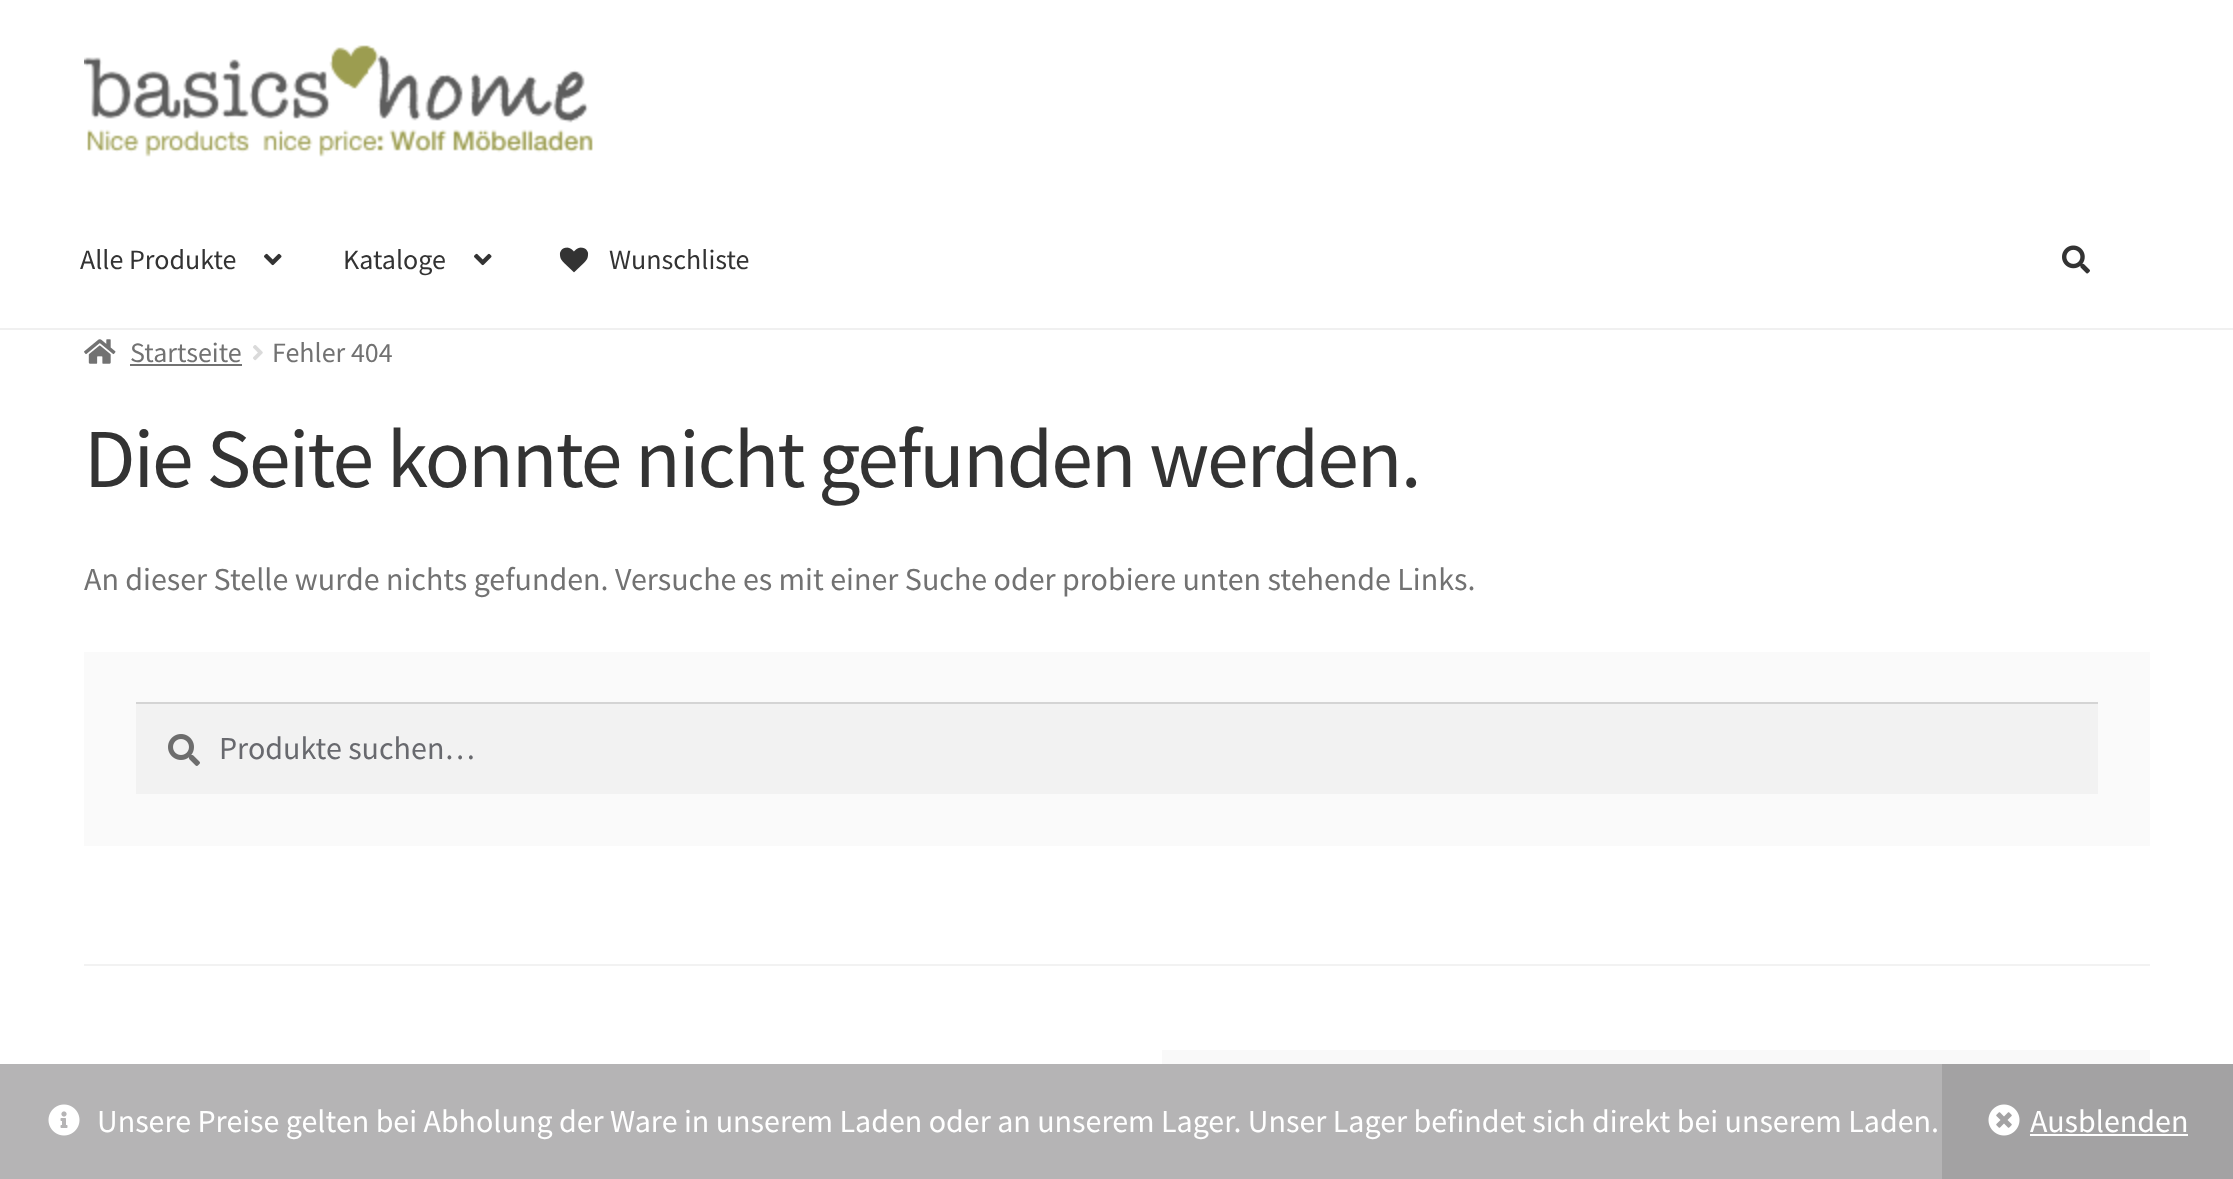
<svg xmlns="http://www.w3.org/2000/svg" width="2233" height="1179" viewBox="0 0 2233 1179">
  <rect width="100%" height="100%" fill="#fff"/>
  <path d="M0 328h2233v2H0z" fill="#f0f0f0"/>
  <image x="84" y="45" width="509" height="112" href="img/1.png"/>
  <image x="264" y="253" width="18" height="13" href="img/2.png"/>
  <image x="474" y="253" width="18" height="13" href="img/2.png"/>
  <image x="559" y="247" width="30" height="26" href="img/3.png"/>
  <image x="2062" y="245" width="28" height="29" href="img/4.png"/>
  <image x="84" y="339" width="32" height="25" href="img/5.png"/>
  <path d="M130 364h112v2H130z" fill="#727272"/>
  <image x="253" y="345" width="10" height="16" href="img/6.png"/>
  <path d="M84 652h2066v194H84z" fill="#fafafa"/>
  <path d="M136 704h1962v90H136z" fill="#f2f2f2"/>
  <image x="168" y="734" width="32" height="32" href="img/7.png"/>
  <path d="M136 702h1962v2H136z" fill="#d4d4d4"/>
  <path d="M84 964h2066v2H84z" fill="#f2f2f2"/>
  <path d="M1162 1050h988v14H1162z" fill="#f9f9f9"/>
  <path d="M0 1064h1942v115H0z" fill="#b5b4b5"/>
  <image x="48" y="1104" width="32" height="32" href="img/8.png"/>
  <path d="M1942 1064h291v115H1942z" fill="#a3a2a3"/>
  <image x="1988" y="1104" width="32" height="32" href="img/9.png"/>
  <path d="M2030 1134h158v2H2030z" fill="#fff"/>
  <g font-family="Source Sans Pro" font-size="28" fill="#333">
    <text x="80" y="269">Alle Produkte</text>
    <text x="343" y="269">Kataloge</text>
    <text x="609" y="269">Wunschliste</text>
  </g>
  <g font-family="Source Sans Pro" font-size="28" fill="#727272">
    <text x="130" y="362">Startseite</text>
    <text x="272" y="362">Fehler 404</text>
  </g>
  <text x="84" y="487" font-family="Source Sans Pro" font-size="83.75" letter-spacing="-2" fill="#333">Die Seite konnte nicht gefunden werden.</text>
  <text x="84" y="590" font-family="Source Sans Pro" font-size="32" fill="#727272">An dieser Stelle wurde nichts gefunden. Versuche es mit einer Suche oder probiere unten stehende Links.</text>
  <text x="219" y="759" font-family="Source Sans Pro" font-size="32" fill="#68696e">Produkte suchen…</text>
  <g font-family="Source Sans Pro" font-size="32" fill="#fff">
    <text x="97" y="1132">Unsere Preise gelten bei Abholung der Ware in unserem Laden oder an unserem Lager. Unser Lager befindet sich direkt bei unserem Laden.</text>
    <text x="2030" y="1132">Ausblenden</text>
  </g>
</svg>
